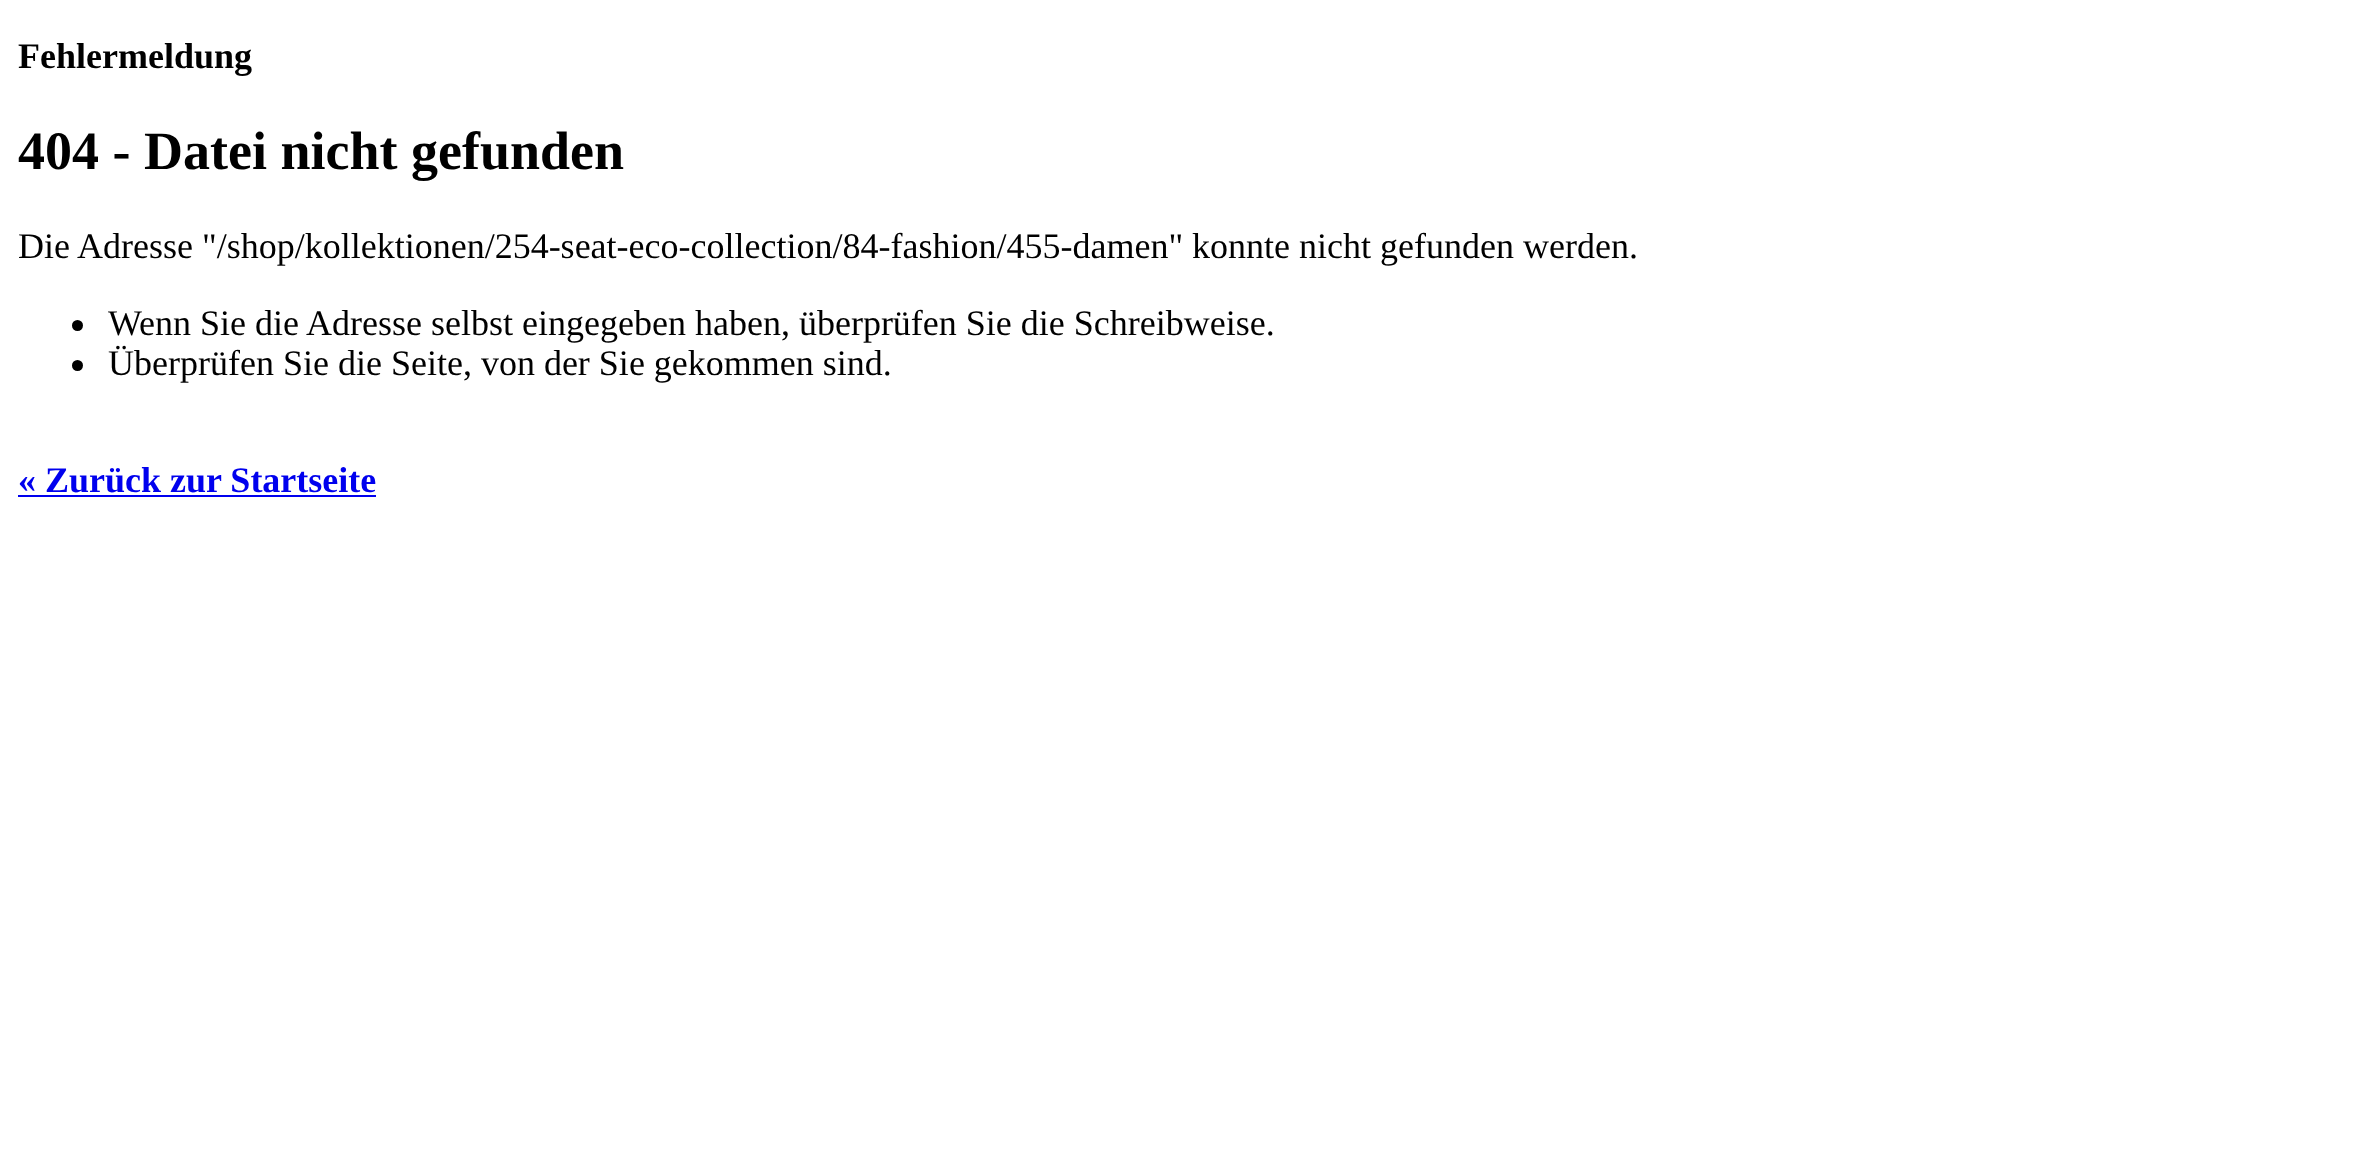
<svg xmlns="http://www.w3.org/2000/svg" width="2356" height="1175" viewBox="0 0 2356 1175">
  <rect width="100%" height="100%" fill="#fff"/>
  <circle cx="77.5" cy="325.5" r="5.5" fill="#000"/>
  <circle cx="77.5" cy="365.5" r="5.5" fill="#000"/>
  <path d="M18 495h358v2H18z" fill="#00e"/>
  <text x="18" y="68" font-family="Liberation Serif" font-size="36" font-weight="bold" fill="#000">Fehlermeldung</text>
  <text x="18" y="169" font-family="Liberation Serif" font-size="54" font-weight="bold" fill="#000">404 - Datei nicht gefunden</text>
  <g font-family="Liberation Serif" font-size="36" fill="#000">
    <text x="18" y="258">Die Adresse "/shop/kollektionen/254-seat-eco-collection/84-fashion/455-damen" konnte nicht gefunden werden.</text>
    <text x="108" y="335">Wenn Sie die Adresse selbst eingegeben haben, überprüfen Sie die Schreibweise.</text>
    <text x="108" y="375">Überprüfen Sie die Seite, von der Sie gekommen sind.</text>
  </g>
  <text x="18" y="492" font-family="Liberation Serif" font-size="36" font-weight="bold" fill="#00e">« Zurück zur Startseite</text>
</svg>
